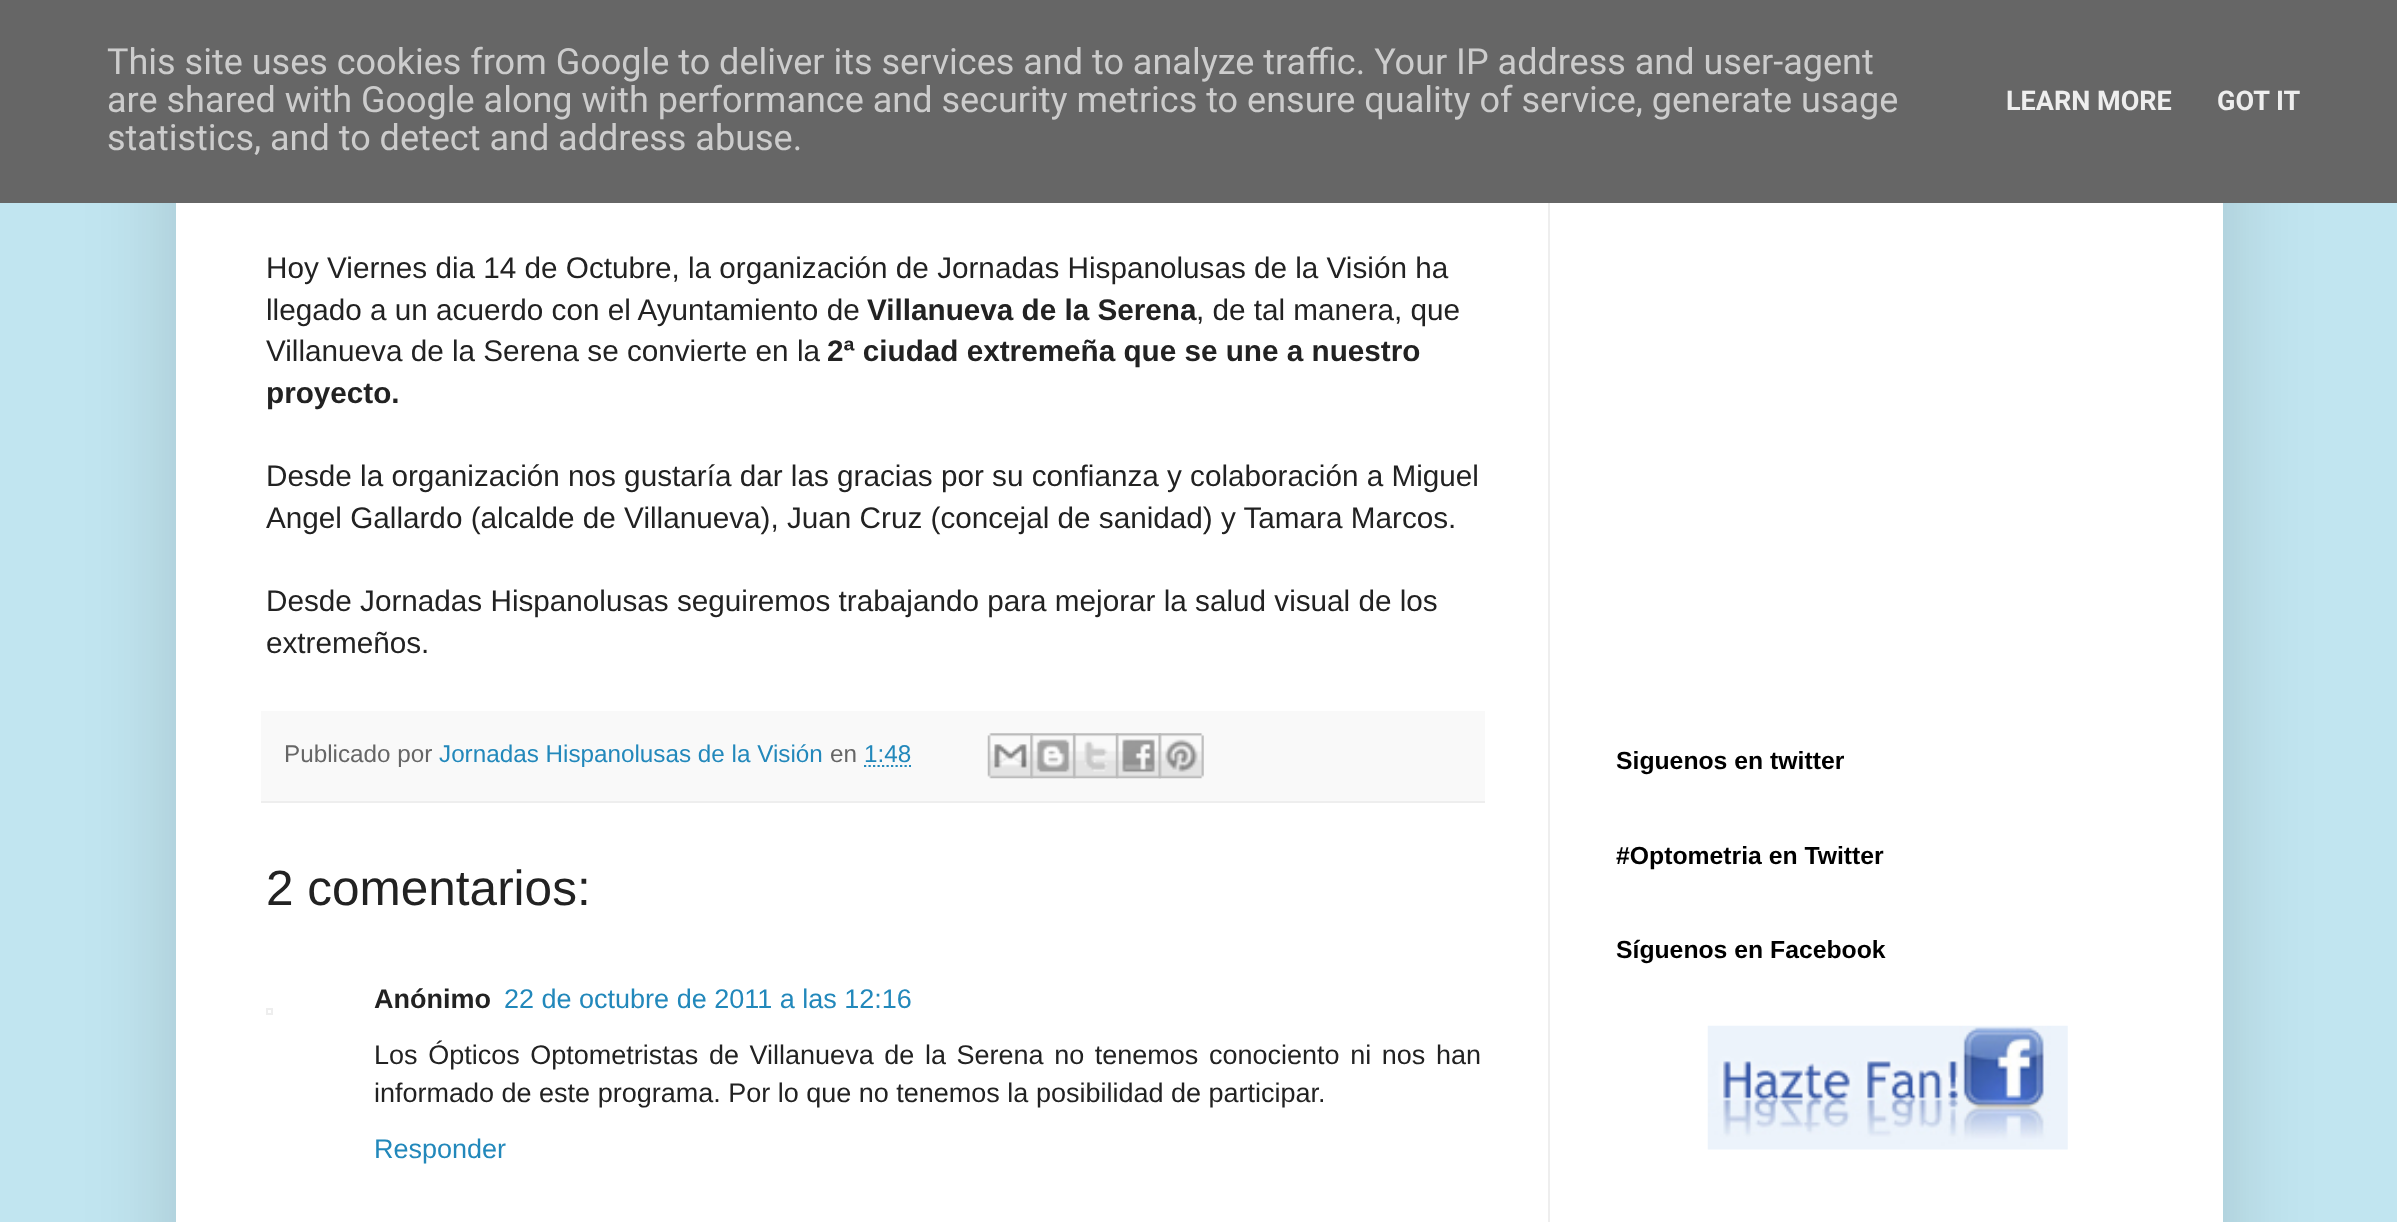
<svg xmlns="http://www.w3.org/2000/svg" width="2397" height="1222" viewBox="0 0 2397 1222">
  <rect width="100%" height="100%" fill="#c1e5f0"/>
  <path d="M176 -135h2047v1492H176z" fill="#00000026" filter="blur(45px)"/>
  <path d="M0 0h2397v203H0z" fill="#666"/>
  <path d="M176 203h2047v1019H176z" fill="#fff"/>
  <path d="M1548 203h2v1019H1548z" fill="#eee"/>
  <path d="M261 711h1224v90H261z" fill="#f9f9f9"/>
  <path d="M261 801h1224v2H261z" fill="#eee"/>
  <path d="M864 766H911" fill="none" stroke="#28b" stroke-width="2.2" stroke-dasharray="2.25 2.25"/>
  <image x="987" y="733" width="46" height="46" href="img/1.png"/>
  <image x="1030" y="733" width="46" height="46" href="img/2.png"/>
  <image x="1073" y="733" width="46" height="46" href="img/3.png"/>
  <image x="1116" y="733" width="45" height="46" href="img/4.png"/>
  <image x="1158" y="733" width="46" height="46" href="img/5.png"/>
  <path d="M267 1009h5v5H267z" fill="none" stroke="#eee" stroke-width="2"/>
  <image x="1707" y="1025" width="361" height="125" href="img/6.png"/>
  <g font-family="Roboto" font-size="36" fill="#ccc">
    <text x="107" y="74">This site uses cookies from Google to deliver its services and to analyze traffic. Your IP address and user-agent</text>
    <text x="107" y="112">are shared with Google along with performance and security metrics to ensure quality of service, generate usage</text>
    <text x="107" y="150">statistics, and to detect and address abuse.</text>
  </g>
  <g font-family="Roboto" font-size="27" font-weight="bold" fill="#eee">
    <text x="2006" y="110">LEARN MORE</text>
    <text x="2217" y="110">GOT IT</text>
  </g>
  <g font-family="Liberation Sans" font-size="29.7" fill="#222">
    <text x="266" y="278">Hoy Viernes dia 14 de Octubre, la organización de Jornadas Hispanolusas de la Visión ha</text>
    <text x="266" y="320">llegado a un acuerdo con el Ayuntamiento de</text>
  </g>
  <text x="867" y="320" font-family="Liberation Sans" font-size="29.7" font-weight="bold" fill="#222">Villanueva de la Serena</text>
  <g font-family="Liberation Sans" font-size="29.7" fill="#222">
    <text x="1196" y="320">, de tal manera, que</text>
    <text x="266" y="361">Villanueva de la Serena se convierte en la</text>
  </g>
  <g font-family="Liberation Sans" font-size="29.7" font-weight="bold" fill="#222">
    <text x="827" y="361">2ª ciudad extremeña que se une a nuestro</text>
    <text x="266" y="403">proyecto.</text>
  </g>
  <g font-family="Liberation Sans" font-size="29.7" fill="#222">
    <text x="266" y="486">Desde la organización nos gustaría dar las gracias por su confianza y colaboración a Miguel</text>
    <text x="266" y="528">Angel Gallardo (alcalde de Villanueva), Juan Cruz (concejal de sanidad) y Tamara Marcos.</text>
    <text x="266" y="611">Desde Jornadas Hispanolusas seguiremos trabajando para mejorar la salud visual de los</text>
    <text x="266" y="653">extremeños.</text>
  </g>
  <text x="284" y="762" font-family="Liberation Sans" font-size="24.25" fill="#666">Publicado por</text>
  <text x="439" y="762" font-family="Liberation Sans" font-size="24.25" fill="#28b">Jornadas Hispanolusas de la Visión</text>
  <text x="830" y="762" font-family="Liberation Sans" font-size="24.25" fill="#666">en</text>
  <text x="864" y="762" font-family="Liberation Sans" font-size="24.25" fill="#28b">1:48</text>
  <text x="266" y="905" font-family="Liberation Sans" font-size="49.5" fill="#222">2 comentarios:</text>
  <text x="374" y="1008" font-family="Liberation Sans" font-size="27" font-weight="bold" fill="#222">Anónimo</text>
  <text x="504" y="1008" font-family="Liberation Sans" font-size="27" fill="#28b">22 de octubre de 2011 a las 12:16</text>
  <g font-family="Liberation Sans" font-size="27" fill="#222">
    <text x="374" y="1064" word-spacing="3.1">Los Ópticos Optometristas de Villanueva de la Serena no tenemos conociento ni nos han</text>
    <text x="374" y="1102">informado de este programa. Por lo que no tenemos la posibilidad de participar.</text>
  </g>
  <text x="374" y="1158" font-family="Liberation Sans" font-size="27" fill="#28b">Responder</text>
  <g font-family="Liberation Sans" font-size="24.75" font-weight="bold" fill="#000">
    <text x="1616" y="769">Siguenos en twitter</text>
    <text x="1616" y="864">#Optometria en Twitter</text>
    <text x="1616" y="958">Síguenos en Facebook</text>
  </g>
</svg>
